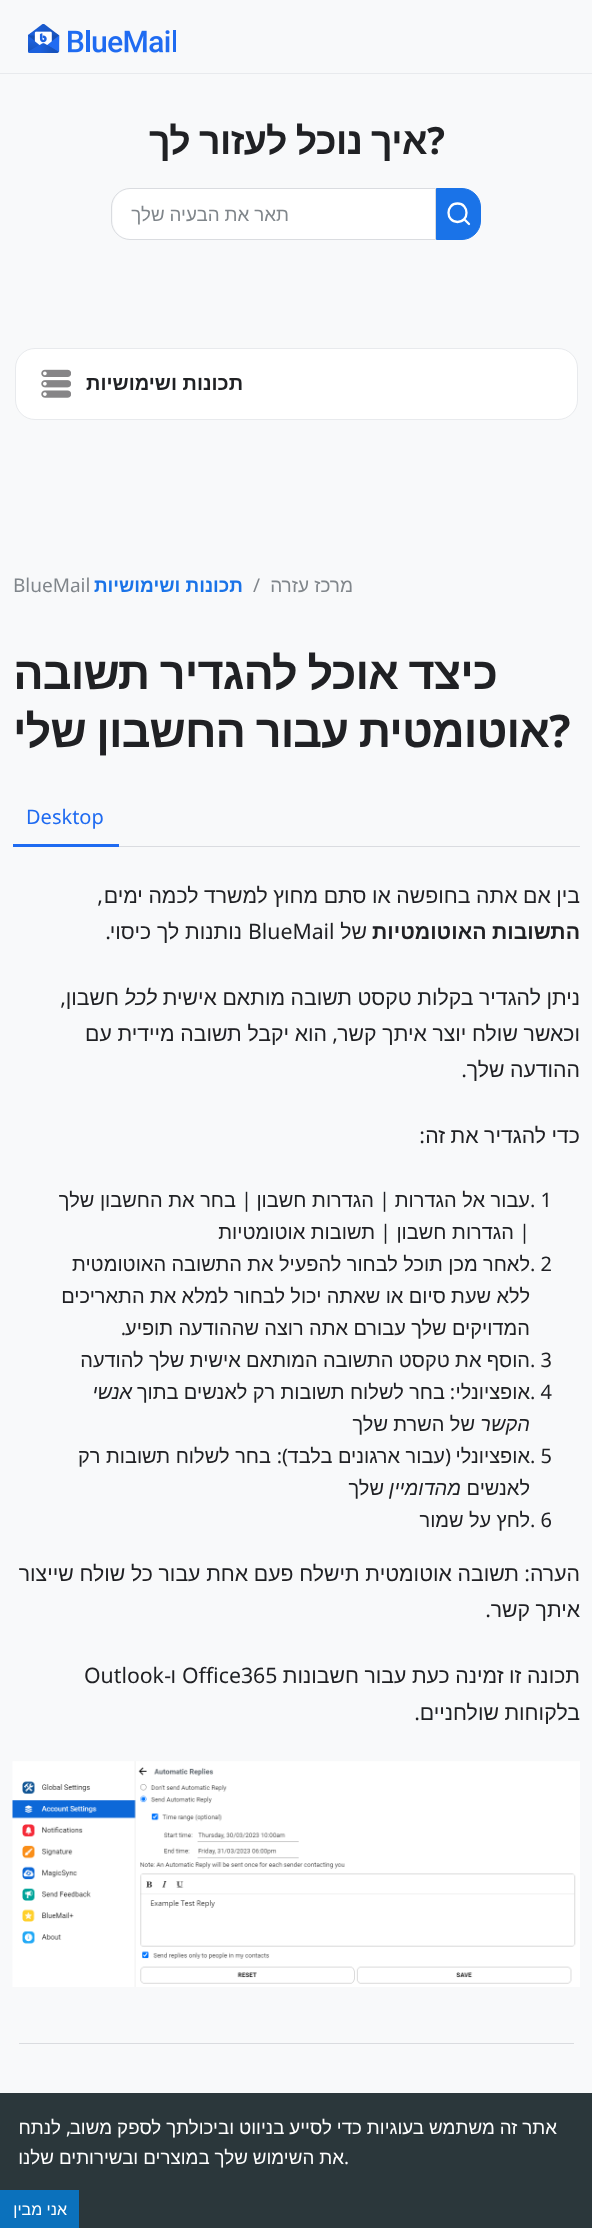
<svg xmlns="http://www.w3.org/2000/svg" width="592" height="2228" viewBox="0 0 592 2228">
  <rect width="100%" height="100%" fill="#f8f9fa"/>
  <path d="M0 73h592v1H0z" fill="#e8eaed"/>
  <image x="28" y="24" width="148" height="29" href="img/1.png"/>
  <path d="M436.5 188.5H462C472 188.5 480.5 197 480.5 207V221C480.5 231 472 239.5 462 239.5H436.5Z" fill="#1a73e8" stroke="#1a73e8"/>
  <path d="M457.5 222C469.5 222 469.5 203.5 457.5 203.5C445.5 203.5 445.5 222 457.5 222ZM469 224L464 219" fill="none" stroke="#fff" stroke-width="2.3" stroke-linecap="round" stroke-linejoin="round"/>
  <path d="M131 189H435V239H131C121 239 113 231 113 221V207C113 197 121 189 131 189Z" fill="#fff"/>
  <path d="M130 188.5H435.5V239.5H130C120 239.5 111.5 231 111.5 221V207C111.5 197 120 188.5 130 188.5Z" fill="none" stroke="#dadce0"/>
  <path d="M0 2093h592v135H0z" fill="#2b373b"/>
  <path d="M0 2190h79v38H0z" fill="#0b71bc"/>
  <rect x="15.5" y="348.5" width="562" height="71" rx="19.5" fill="#fff" stroke="#e8eaed"/>
  <image x="41" y="369" width="30" height="29" href="img/2.png"/>
  <path d="M119 846h461v1H119z" fill="#dadce0"/>
  <path d="M13 844h106v3H13z" fill="#1f6bf1"/>
  <image x="12" y="1761" width="568" height="226" href="img/3.png"/>
  <path d="M19 2043h555v1H19z" fill="#dadce0"/>
  <text x="427" y="154" word-spacing="-1" font-family="Liberation Sans" font-size="37.5" font-weight="bold" letter-spacing="-0.6" direction="rtl" fill="#202124">איך נוכל לעזור לך</text>
  <text x="427" y="154" font-family="Noto Sans" font-size="37.5" font-weight="bold" letter-spacing="-0.6" fill="#202124">?</text>
  <text x="289" y="221" word-spacing="-0.25" font-family="Liberation Sans" font-size="18.75" direction="rtl" fill="#80868b">תאר את הבעיה שלך</text>
  <text x="557" y="2134" word-spacing="-0.25" font-family="Liberation Sans" font-size="18.75" direction="rtl" fill="#fff">אתר זה משתמש בעוגיות כדי לסייע בניווט וביכולתך לספק משוב</text>
  <text x="71" y="2134" font-family="Noto Sans" font-size="18.75" direction="rtl" fill="#fff">,</text>
  <g font-family="Liberation Sans" font-size="18.75" direction="rtl" fill="#fff">
    <text x="61" y="2134">לנתח</text>
    <text x="344" y="2164" word-spacing="-0.25">את השימוש שלך במוצרים ובשירותים שלנו</text>
  </g>
  <text x="344" y="2164" font-family="Noto Sans" font-size="18.75" fill="#fff">.</text>
  <text x="67" y="2215" font-family="Liberation Sans" font-size="16" direction="rtl" fill="#fff">אני מבין</text>
  <text x="243" y="390" font-family="Liberation Sans" font-size="20" font-weight="bold" direction="rtl" fill="#202124">תכונות ושימושיות</text>
  <text x="353" y="592" font-family="Liberation Sans" font-size="19" direction="rtl" fill="#80868b">מרכז עזרה</text>
  <text x="253" y="592" font-family="Noto Sans" font-size="19" fill="#80868b">/</text>
  <text x="243" y="592" font-family="Liberation Sans" font-size="19" font-weight="bold" direction="rtl" fill="#1a73e8">תכונות ושימושיות</text>
  <text x="13" y="592" font-family="Noto Sans" font-size="19" fill="#80868b">BlueMail</text>
  <g font-family="Liberation Sans" font-size="45" font-weight="bold" letter-spacing="-0.9" direction="rtl" fill="#202124">
    <text x="497" y="689" word-spacing="-1">כיצד אוכל להגדיר תשובה</text>
    <text x="549" y="747" word-spacing="-1">אוטומטית עבור החשבון שלי</text>
  </g>
  <text x="549" y="747" font-family="Noto Sans" font-size="45" font-weight="bold" letter-spacing="-0.9" fill="#202124">?</text>
  <text x="26" y="824" font-family="Noto Sans" font-size="20" fill="#1f6bf1">Desktop</text>
  <text x="580" y="903" word-spacing="-0.4" font-family="Liberation Sans" font-size="21.25" direction="rtl" fill="#202124">בין אם אתה בחופשה או סתם מחוץ למשרד לכמה ימים</text>
  <text x="103" y="903" font-family="Noto Sans" font-size="21.25" direction="rtl" fill="#202124">,</text>
  <text x="580" y="939" word-spacing="-0.4" font-family="Liberation Sans" font-size="21.25" font-weight="bold" direction="rtl" fill="#202124">התשובות האוטומטיות</text>
  <text x="367" y="939" font-family="Liberation Sans" font-size="21.25" direction="rtl" fill="#202124">של</text>
  <text x="248" y="939" font-family="Noto Sans" font-size="21.25" fill="#202124">BlueMail</text>
  <text x="242" y="939" font-family="Liberation Sans" font-size="21.25" direction="rtl" fill="#202124">נותנות לך כיסוי</text>
  <text x="111" y="939" font-family="Noto Sans" font-size="21.25" direction="rtl" fill="#202124">.</text>
  <text x="580" y="1005" word-spacing="-0.4" font-family="Liberation Sans" font-size="21.25" direction="rtl" fill="#202124">ניתן להגדיר בקלות טקסט תשובה מותאם אישית</text>
  <text x="157" y="1005" font-family="Liberation Sans" font-size="21.25" font-style="italic" direction="rtl" fill="#202124">לכל</text>
  <text x="119" y="1005" font-family="Liberation Sans" font-size="21.25" direction="rtl" fill="#202124">חשבון</text>
  <text x="66" y="1005" font-family="Noto Sans" font-size="21.25" direction="rtl" fill="#202124">,</text>
  <text x="580" y="1041" word-spacing="-0.25" font-family="Liberation Sans" font-size="21.25" direction="rtl" fill="#202124">וכאשר שולח יוצר איתך קשר</text>
  <text x="338" y="1041" font-family="Noto Sans" font-size="21.25" direction="rtl" fill="#202124">,</text>
  <g font-family="Liberation Sans" font-size="21.25" direction="rtl" fill="#202124">
    <text x="327" y="1041" word-spacing="-0.25">הוא יקבל תשובה מיידית עם</text>
    <text x="580" y="1077" word-spacing="-0.4">ההודעה שלך</text>
  </g>
  <text x="467" y="1077" font-family="Noto Sans" font-size="21.25" direction="rtl" fill="#202124">.</text>
  <text x="580" y="1143" word-spacing="-0.4" font-family="Liberation Sans" font-size="21.25" direction="rtl" fill="#202124">כדי להגדיר את זה</text>
  <text x="425" y="1143" font-family="Noto Sans" font-size="21.25" direction="rtl" fill="#202124">:</text>
  <text x="530" y="1207" font-family="Noto Sans" font-size="20" fill="#202124">. 1</text>
  <text x="530" y="1207" font-family="Liberation Sans" font-size="20" direction="rtl" fill="#202124">עבור אל הגדרות</text>
  <text x="390" y="1207" font-family="Noto Sans" font-size="20" direction="rtl" fill="#202124">|</text>
  <text x="374" y="1207" font-family="Liberation Sans" font-size="20" direction="rtl" fill="#202124">הגדרות חשבון</text>
  <text x="252" y="1207" font-family="Noto Sans" font-size="20" direction="rtl" fill="#202124">|</text>
  <text x="236" y="1207" font-family="Liberation Sans" font-size="20" direction="rtl" fill="#202124">בחר את החשבון שלך</text>
  <text x="530" y="1239" font-family="Noto Sans" font-size="20" direction="rtl" fill="#202124">|</text>
  <text x="514" y="1239" font-family="Liberation Sans" font-size="20" direction="rtl" fill="#202124">הגדרות חשבון</text>
  <text x="391" y="1239" font-family="Noto Sans" font-size="20" direction="rtl" fill="#202124">|</text>
  <text x="375" y="1239" font-family="Liberation Sans" font-size="20" direction="rtl" fill="#202124">תשובות אוטומטיות</text>
  <text x="530" y="1271" font-family="Noto Sans" font-size="20" fill="#202124">. 2</text>
  <g font-family="Liberation Sans" font-size="20" direction="rtl" fill="#202124">
    <text x="530" y="1271" word-spacing="-0.25">לאחר מכן תוכל לבחור להפעיל את התשובה האוטומטית</text>
    <text x="530" y="1303" word-spacing="-0.25">ללא שעת סיום או שאתה יכול לבחור למלא את התאריכים</text>
    <text x="530" y="1335" word-spacing="-0.25">המדויקים שלך עבורם אתה רוצה שההודעה תופיע</text>
  </g>
  <text x="126" y="1335" font-family="Noto Sans" font-size="20" direction="rtl" fill="#202124">.</text>
  <text x="530" y="1367" font-family="Noto Sans" font-size="20" fill="#202124">. 3</text>
  <text x="530" y="1367" word-spacing="-0.25" font-family="Liberation Sans" font-size="20" direction="rtl" fill="#202124">הוסף את טקסט התשובה המותאם אישית שלך להודעה</text>
  <text x="530" y="1399" font-family="Noto Sans" font-size="20" fill="#202124">. 4</text>
  <text x="530" y="1399" font-family="Liberation Sans" font-size="20" direction="rtl" fill="#202124">אופציונלי</text>
  <text x="455" y="1399" font-family="Noto Sans" font-size="20" direction="rtl" fill="#202124">:</text>
  <text x="445" y="1399" word-spacing="-0.25" font-family="Liberation Sans" font-size="20" direction="rtl" fill="#202124">בחר לשלוח תשובות רק לאנשים בתוך</text>
  <g font-family="Liberation Sans" font-size="20" font-style="italic" direction="rtl" fill="#202124">
    <text x="132" y="1399">אנשי</text>
    <text x="530" y="1431">הקשר</text>
  </g>
  <text x="475" y="1431" word-spacing="-0.25" font-family="Liberation Sans" font-size="20" direction="rtl" fill="#202124">של השרת שלך</text>
  <text x="530" y="1463" font-family="Noto Sans" font-size="20" fill="#202124">. 5</text>
  <text x="530" y="1463" font-family="Liberation Sans" font-size="20" direction="rtl" fill="#202124">אופציונלי</text>
  <text x="451" y="1463" font-family="Noto Sans" font-size="20" direction="rtl" fill="#202124">(</text>
  <text x="445" y="1463" font-family="Liberation Sans" font-size="20" direction="rtl" fill="#202124">עבור ארגונים בלבד</text>
  <text x="288" y="1463" font-family="Noto Sans" font-size="20" direction="rtl" fill="#202124">):</text>
  <g font-family="Liberation Sans" font-size="20" direction="rtl" fill="#202124">
    <text x="271" y="1463">בחר לשלוח תשובות רק</text>
    <text x="530" y="1495">לאנשים</text>
  </g>
  <text x="461" y="1495" font-family="Liberation Sans" font-size="20" font-style="italic" direction="rtl" fill="#202124">מהדומיין</text>
  <text x="384" y="1495" font-family="Liberation Sans" font-size="20" direction="rtl" fill="#202124">שלך</text>
  <text x="530" y="1527" font-family="Noto Sans" font-size="20" fill="#202124">. 6</text>
  <text x="530" y="1527" word-spacing="-0.25" font-family="Liberation Sans" font-size="20" direction="rtl" fill="#202124">לחץ על שמור</text>
  <text x="580" y="1581" font-family="Liberation Sans" font-size="21.25" direction="rtl" fill="#202124">הערה</text>
  <text x="530" y="1581" font-family="Noto Sans" font-size="21.25" direction="rtl" fill="#202124">:</text>
  <g font-family="Liberation Sans" font-size="21.25" direction="rtl" fill="#202124">
    <text x="519" y="1581" word-spacing="-0.25">תשובה אוטומטית תישלח פעם אחת עבור כל שולח שייצור</text>
    <text x="580" y="1617" word-spacing="-0.4">איתך קשר</text>
  </g>
  <text x="491" y="1617" font-family="Noto Sans" font-size="21.25" direction="rtl" fill="#202124">.</text>
  <text x="580" y="1683" word-spacing="-0.4" font-family="Liberation Sans" font-size="21.25" direction="rtl" fill="#202124">תכונה זו זמינה כעת עבור חשבונות</text>
  <text x="182" y="1683" font-family="Noto Sans" font-size="21.25" fill="#202124">Office365</text>
  <text x="176" y="1683" font-family="Liberation Sans" font-size="21.25" direction="rtl" fill="#202124">ו</text>
  <text x="171" y="1683" font-family="Noto Sans" font-size="21.25" direction="rtl" fill="#202124">-</text>
  <text x="84" y="1683" font-family="Noto Sans" font-size="21.25" fill="#202124">Outlook</text>
  <text x="580" y="1720" word-spacing="-0.4" font-family="Liberation Sans" font-size="21.25" direction="rtl" fill="#202124">בלקוחות שולחניים</text>
  <text x="420" y="1720" font-family="Noto Sans" font-size="21.25" direction="rtl" fill="#202124">.</text>
</svg>
